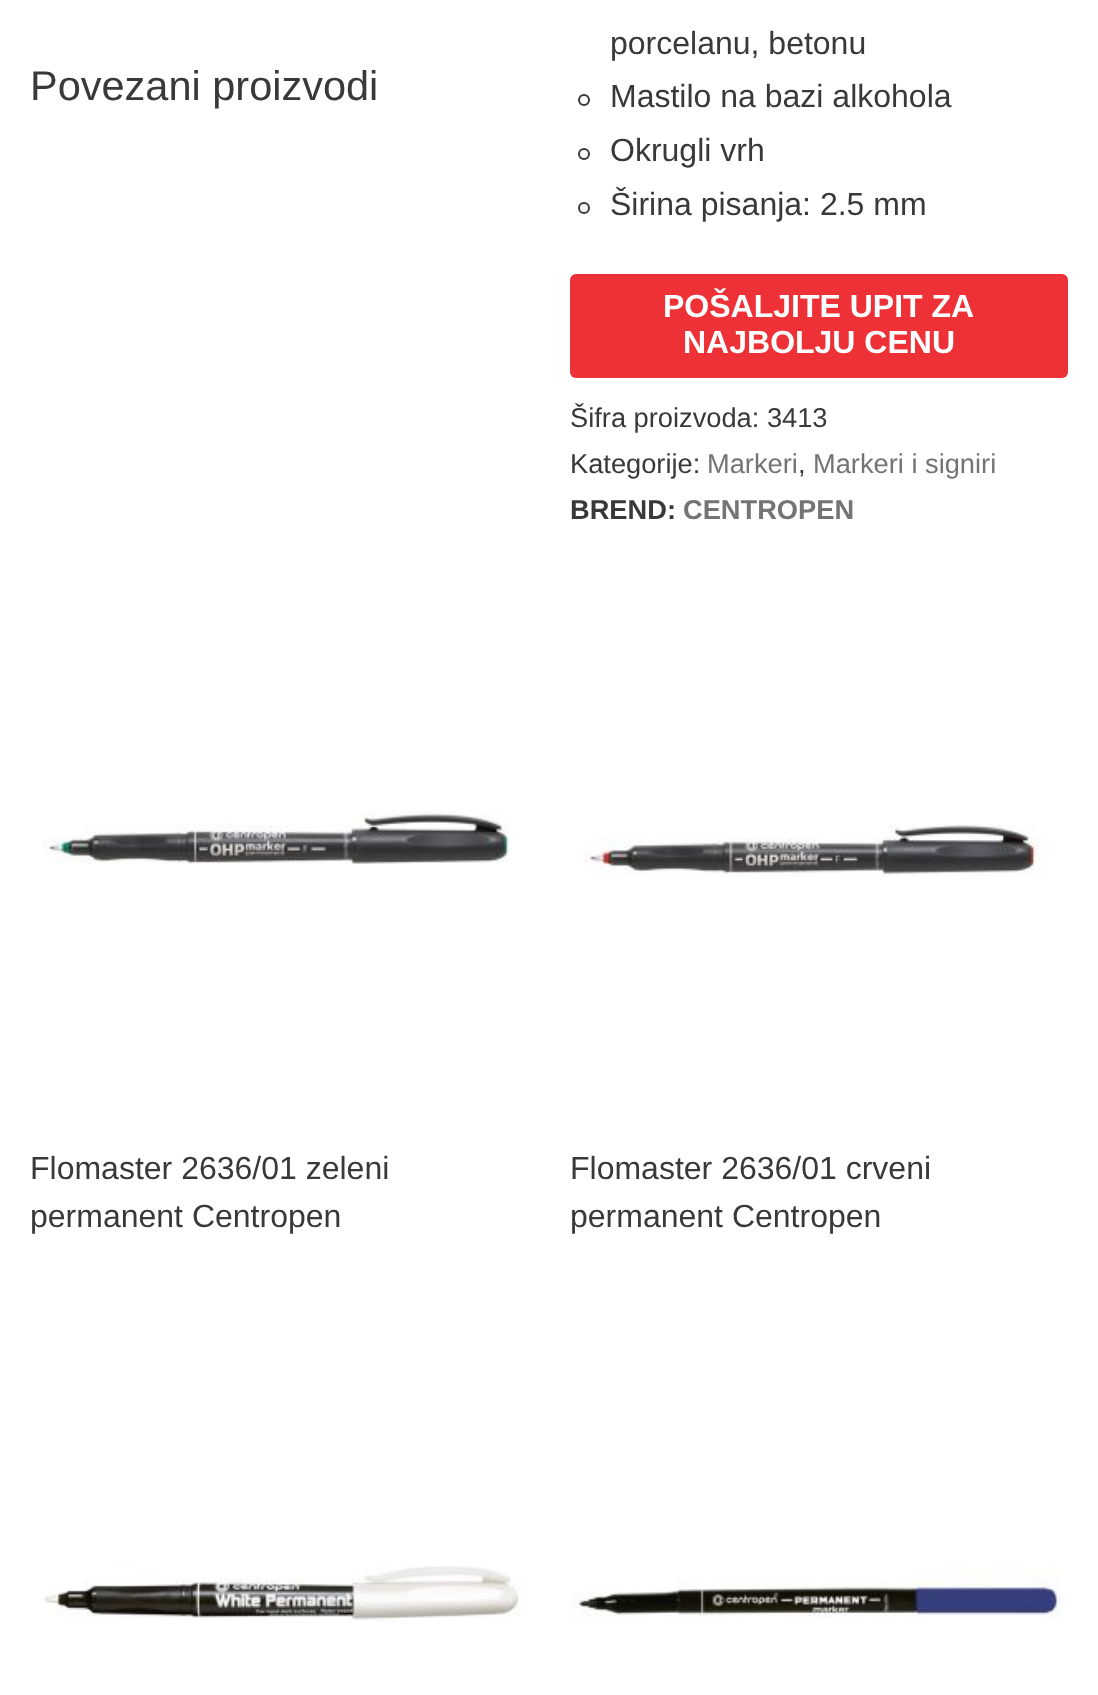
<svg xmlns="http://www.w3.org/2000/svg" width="1098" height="1695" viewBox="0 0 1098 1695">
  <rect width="100%" height="100%" fill="#fff"/>
  <circle cx="584" cy="100" r="5" fill="none" stroke="#393939" stroke-width="2"/>
  <circle cx="584" cy="154" r="5" fill="none" stroke="#393939" stroke-width="2"/>
  <circle cx="584" cy="208" r="5" fill="none" stroke="#393939" stroke-width="2"/>
  <rect x="570" y="274" width="498" height="104" rx="6" fill="#ed3136"/>
  <image x="43" y="811" width="467" height="53" href="img/1.png"/>
  <image x="583" y="824" width="466" height="53" href="img/2.png"/>
  <image x="43" y="1566" width="479" height="56" href="img/3.png"/>
  <image x="570" y="1565" width="496" height="53" href="img/4.png"/>
  <g font-family="Liberation Sans" font-size="32" fill="#393939">
    <text x="610" y="54">porcelanu, betonu</text>
    <text x="610" y="107">Mastilo na bazi alkohola</text>
    <text x="610" y="161">Okrugli vrh</text>
    <text x="610" y="215">Širina pisanja: 2.5 mm</text>
  </g>
  <g font-family="Liberation Sans" font-size="32" font-weight="bold" fill="#fff">
    <text x="663" y="317">POŠALJITE UPIT ZA</text>
    <text x="683" y="353">NAJBOLJU CENU</text>
  </g>
  <g font-family="Liberation Sans" font-size="27.25" fill="#393939">
    <text x="570" y="427">Šifra proizvoda: 3413</text>
    <text x="570" y="473">Kategorije:</text>
  </g>
  <text x="707" y="473" font-family="Liberation Sans" font-size="27.25" fill="#747474">Markeri</text>
  <text x="798" y="473" font-family="Liberation Sans" font-size="27.25" fill="#393939">,</text>
  <text x="813" y="473" font-family="Liberation Sans" font-size="27.25" fill="#747474">Markeri i signiri</text>
  <text x="570" y="519" font-family="Liberation Sans" font-size="27.25" font-weight="bold" fill="#393939">BREND:</text>
  <text x="683" y="519" font-family="Liberation Sans" font-size="27.25" font-weight="bold" fill="#747474">CENTROPEN</text>
  <text x="30" y="100" font-family="Liberation Sans" font-size="41.5" fill="#393939">Povezani proizvodi</text>
  <g font-family="Liberation Sans" font-size="32" fill="#393939">
    <text x="30" y="1179">Flomaster 2636/01 zeleni</text>
    <text x="30" y="1227">permanent Centropen</text>
    <text x="570" y="1179">Flomaster 2636/01 crveni</text>
    <text x="570" y="1227">permanent Centropen</text>
  </g>
</svg>
